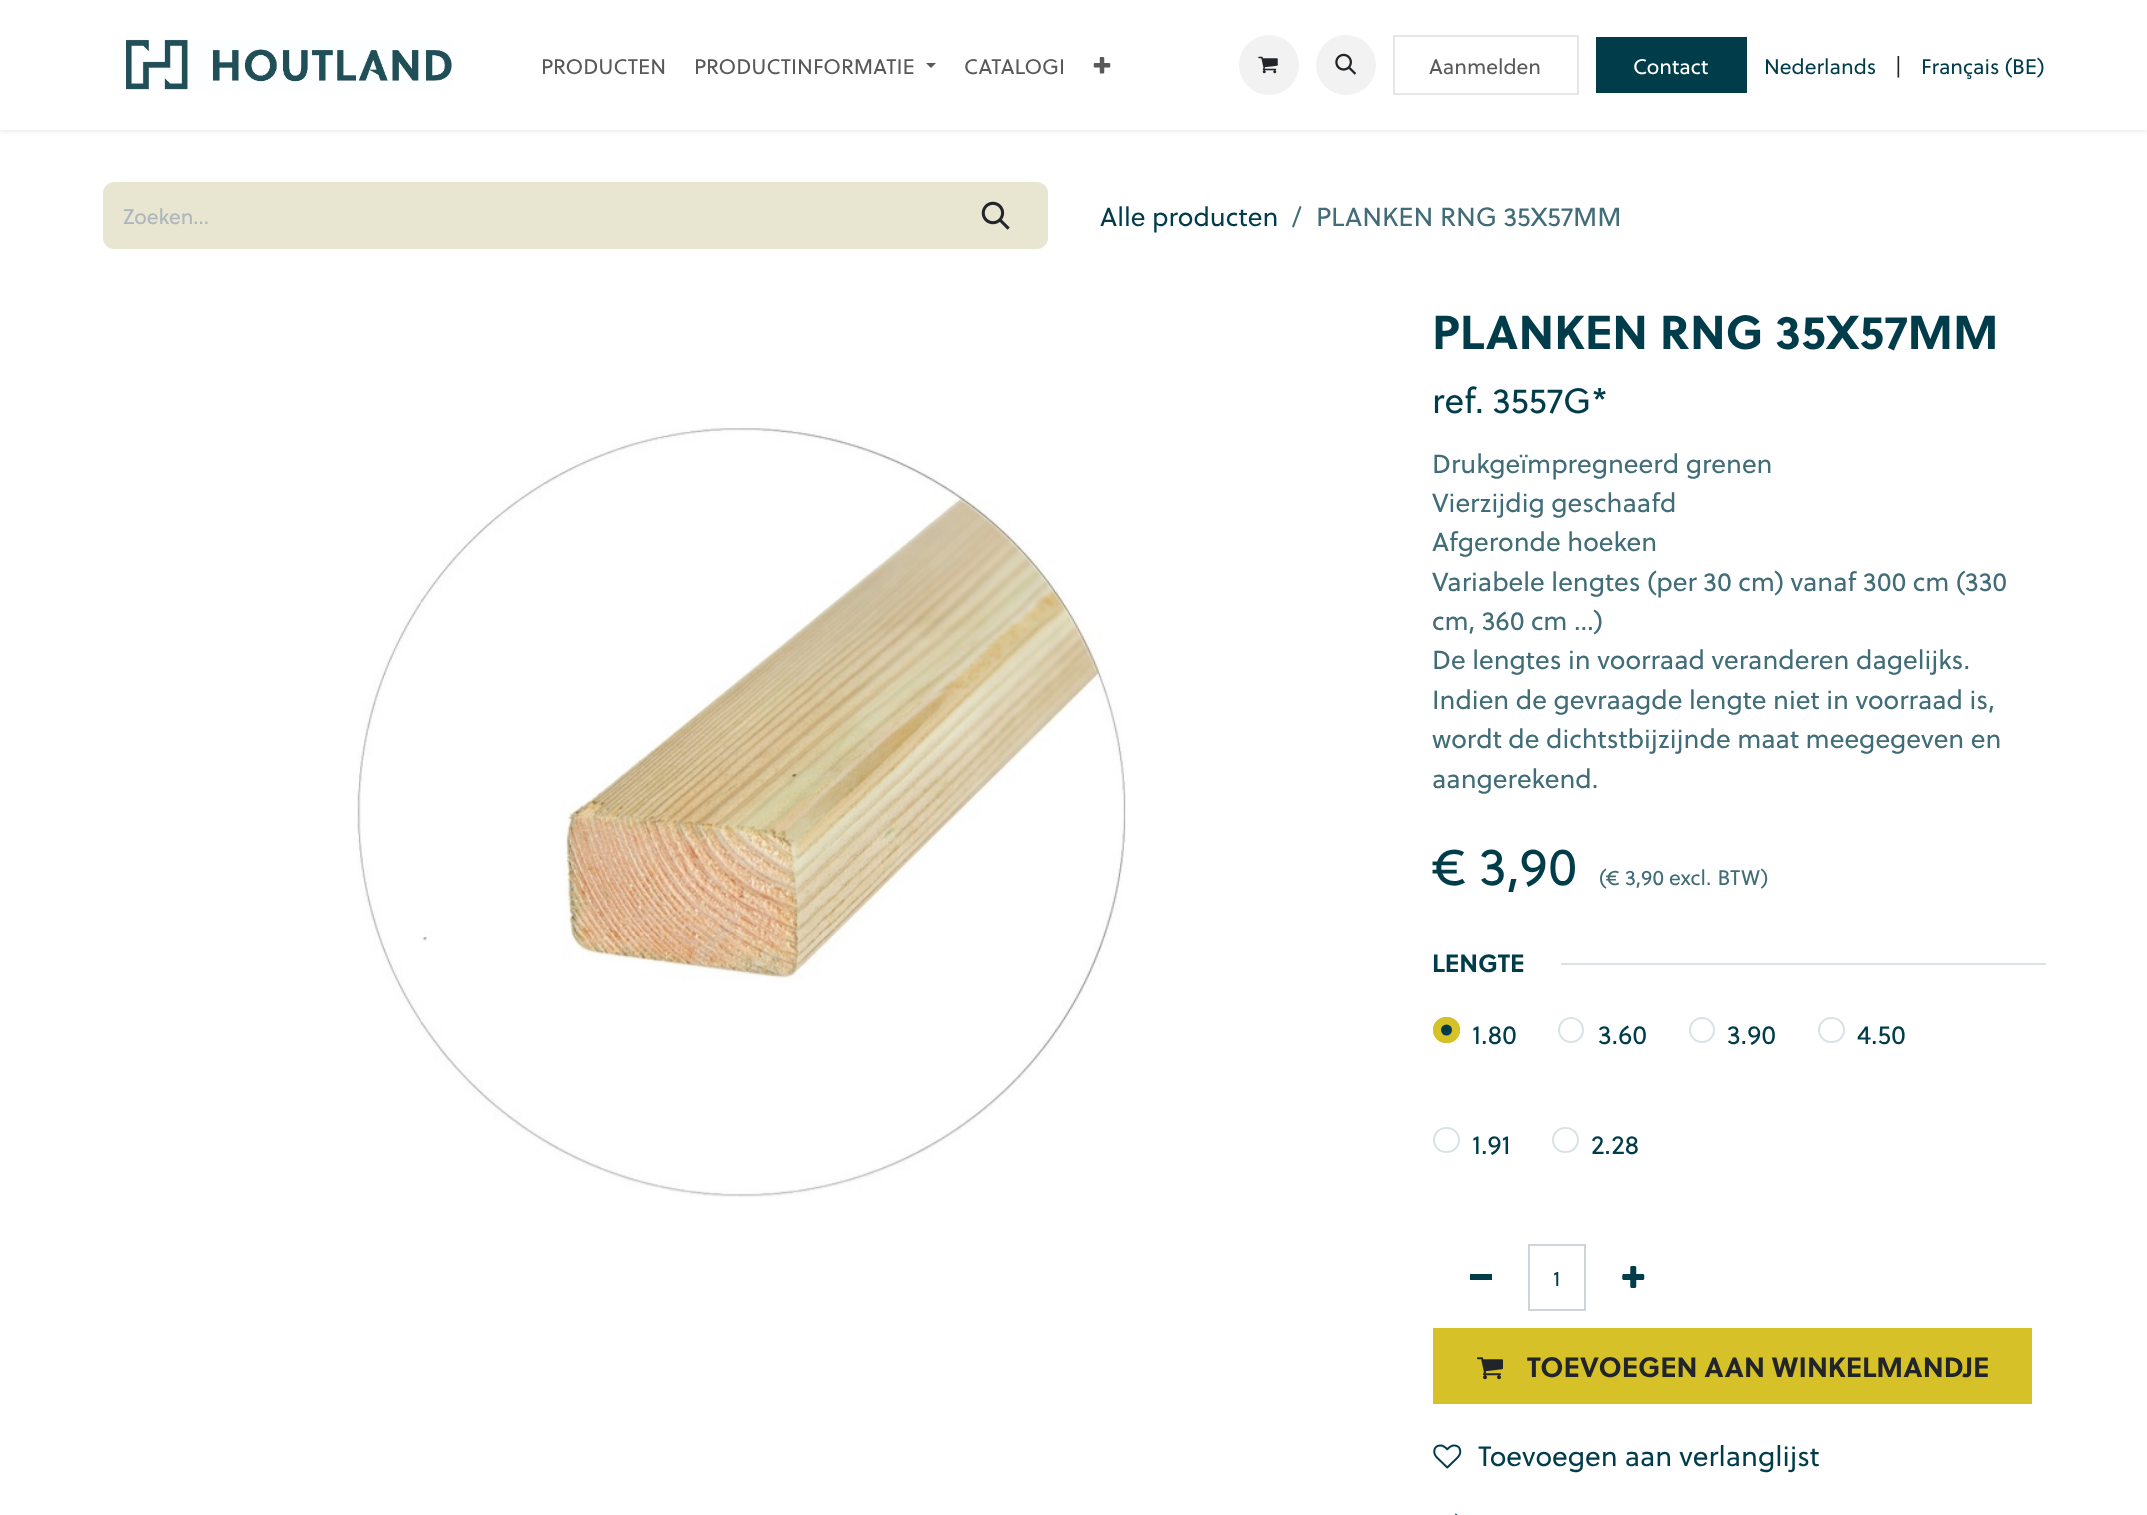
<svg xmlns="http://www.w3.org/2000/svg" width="2147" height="1515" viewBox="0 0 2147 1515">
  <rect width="100%" height="100%" fill="#fff"/>
  <path d="M0 2h2147v129H0z" fill="#0000001a" filter="blur(2.5px)"/>
  <path d="M0 0h2147v130H0z" fill="#fff"/>
  <image x="126" y="39" width="326" height="51" href="img/1.png"/>
  <path d="M926 63H936L931 68Z" fill="#595959"/>
  <image x="1093" y="57" width="18" height="17" href="img/2.png"/>
  <circle cx="1269" cy="65" r="30" fill="#f2f2f2"/>
  <image x="1258" y="56" width="20" height="18" href="img/3.png"/>
  <circle cx="1346" cy="65" r="30" fill="#f2f2f2"/>
  <image x="1335" y="53" width="22" height="22" href="img/4.png"/>
  <path d="M1394 36h184v58H1394z" fill="none" stroke="#e6e6e6" stroke-width="2"/>
  <path d="M1596 37h151v56H1596z" fill="#003c4a"/>
  <path d="M114 182H945V249H114C108 249 103 244 103 238V193C103 187 108 182 114 182Z" fill="#e8e6d1"/>
  <path d="M943 182H1037C1043 182 1048 187 1048 193V238C1048 244 1043 249 1037 249H943Z" fill="#e8e6d1"/>
  <image x="981" y="201" width="29" height="29" href="img/5.png"/>
  <image x="357" y="427" width="769" height="770" href="img/6.png"/>
  <path d="M1561 963h485v2H1561z" fill="#d9e2e4"/>
  <rect x="1433" y="1017" width="27" height="26" rx="13" fill="#d6c128"/>
  <circle cx="1446.5" cy="1030" r="5.5" fill="#003c4a"/>
  <rect x="1434" y="1018" width="25" height="24" rx="12" fill="none" stroke="#d6c128" stroke-width="2"/>
  <circle cx="1571" cy="1030" r="12" fill="none" stroke="#d9e2e4" stroke-width="2"/>
  <circle cx="1702" cy="1030" r="12" fill="none" stroke="#d9e2e4" stroke-width="2"/>
  <rect x="1819" y="1018" width="25" height="24" rx="12" fill="none" stroke="#d9e2e4" stroke-width="2"/>
  <rect x="1434" y="1128" width="25" height="24" rx="12" fill="none" stroke="#d9e2e4" stroke-width="2"/>
  <rect x="1553" y="1128" width="25" height="24" rx="12" fill="none" stroke="#d9e2e4" stroke-width="2"/>
  <path d="M1470 1274h22v6H1470z" fill="#003c4a"/>
  <path d="M1529 1245h56v65H1529z" fill="none" stroke="#ced4da" stroke-width="2"/>
  <image x="1622" y="1266" width="23" height="22" href="img/7.png"/>
  <path d="M1433 1328h599v76H1433z" fill="#d6c128"/>
  <image x="1477" y="1357" width="26" height="23" href="img/8.png"/>
  <image x="1433" y="1444" width="29" height="25" href="img/9.png"/>
  <image x="1455" y="1513" width="3" height="2" href="img/10.png"/>
  <g font-family="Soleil" font-size="21" fill="#595959">
    <text x="541" y="74">PRODUCTEN</text>
    <text x="694" y="74">PRODUCTINFORMATIE</text>
    <text x="964" y="74">CATALOGI</text>
    <text x="1429" y="74">Aanmelden</text>
  </g>
  <text x="1633" y="74" font-family="Soleil" font-size="21" fill="#fff">Contact</text>
  <text x="1764" y="74" font-family="Soleil" font-size="21" fill="#003c4a">Nederlands</text>
  <text x="1895" y="74" font-family="Soleil" font-size="21" fill="#212529">|</text>
  <text x="1921" y="74" font-family="Soleil" font-size="21" fill="#003c4a">Français (BE)</text>
  <text x="123" y="224" font-family="Soleil" font-size="21" fill="#adb5bd">Zoeken...</text>
  <text x="1100" y="226" font-family="Soleil" font-size="26.25" fill="#003c4a">Alle producten</text>
  <g font-family="Soleil" font-size="26.25" fill="#406d77">
    <text x="1292" y="226">/</text>
    <text x="1316" y="226">PLANKEN RNG 35X57MM</text>
  </g>
  <text x="1432" y="349" font-family="Soleil" font-size="47.6" font-weight="bold" fill="#003c4a">PLANKEN RNG 35X57MM</text>
  <text x="1432" y="413" font-family="Soleil" font-size="35" fill="#003c4a">ref. 3557G*</text>
  <g font-family="Soleil" font-size="26.25" fill="#406d77">
    <text x="1432" y="473">Drukgeïmpregneerd grenen</text>
    <text x="1432" y="512">Vierzijdig geschaafd</text>
    <text x="1432" y="551">Afgeronde hoeken</text>
    <text x="1432" y="591">Variabele lengtes (per 30 cm) vanaf 300 cm (330</text>
    <text x="1432" y="630">cm, 360 cm …)</text>
    <text x="1432" y="669">De lengtes in voorraad veranderen dagelijks.</text>
    <text x="1432" y="709">Indien de gevraagde lengte niet in voorraad is,</text>
    <text x="1432" y="748">wordt de dichtstbijzijnde maat meegegeven en</text>
    <text x="1432" y="788">aangerekend.</text>
  </g>
  <text x="1432" y="885" font-family="Soleil" font-size="52.5" fill="#003c4a">€ 3,90</text>
  <g font-family="Soleil" font-size="21" fill="#406d77">
    <text x="1599" y="885">(</text>
    <text x="1606" y="885">€ 3,90</text>
    <text x="1669" y="885" word-spacing="1">excl. BTW</text>
    <text x="1761" y="885">)</text>
  </g>
  <text x="1432" y="972" font-family="Soleil" font-size="25" font-weight="bold" fill="#003c4a">LENGTE</text>
  <g font-family="Soleil" font-size="26.25" fill="#003c4a">
    <text x="1472" y="1044">1.80</text>
    <text x="1598" y="1044">3.60</text>
    <text x="1727" y="1044">3.90</text>
    <text x="1857" y="1044">4.50</text>
    <text x="1472" y="1154">1.91</text>
    <text x="1591" y="1154">2.28</text>
  </g>
  <text x="1553" y="1286" font-family="Soleil" font-size="21" fill="#003c4a">1</text>
  <text x="1527" y="1377" font-family="Soleil" font-size="28" font-weight="bold" fill="#212529">TOEVOEGEN AAN WINKELMANDJE</text>
  <text x="1478" y="1466" font-family="Soleil" font-size="28" fill="#003c4a">Toevoegen aan verlanglijst</text>
</svg>
